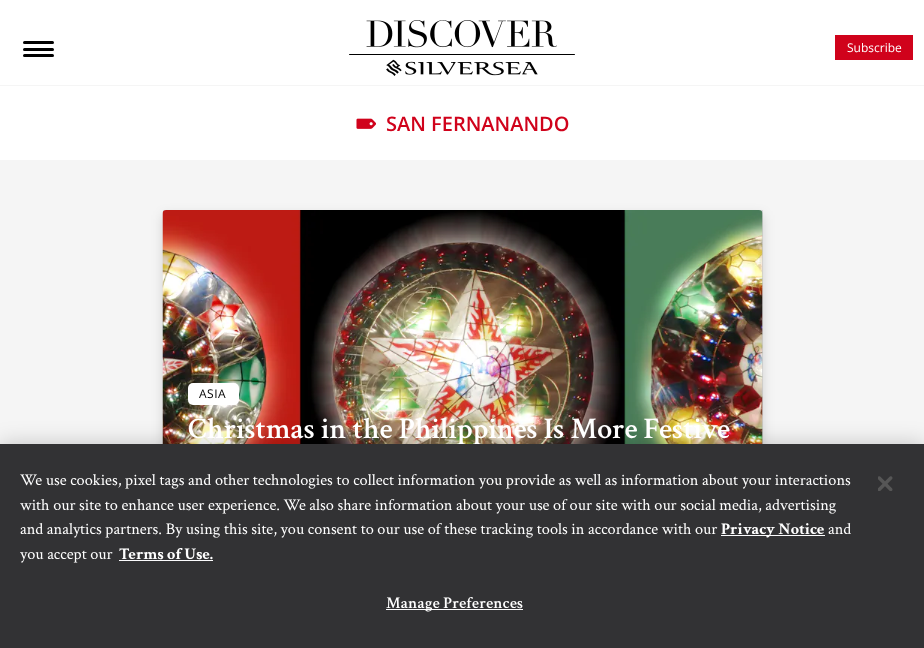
<svg xmlns="http://www.w3.org/2000/svg" width="924" height="648" viewBox="0 0 924 648">
  <rect width="100%" height="100%" fill="#f5f5f5"/>
  <path d="M0 0h924v85H0z" fill="#fff"/>
  <rect x="23" y="48" width="31" height="3" rx="1.5" fill="#000"/>
  <rect x="23" y="41" width="31" height="3" rx="1.5" fill="#000"/>
  <rect x="23" y="54" width="31" height="3" rx="1.5" fill="#000"/>
  <image x="349" y="20" width="226" height="56" href="img/1.png"/>
  <path d="M835 35h78v25H835z" fill="#d0021b"/>
  <path d="M0 86h924v74H0z" fill="#fff"/>
  <image x="356" y="118" width="20" height="11" href="img/2.png"/>
  <path d="M163 215h600v375H163z" fill="#00000026" filter="blur(6px)"/>
  <path d="M163 210h600v234H163z" fill="#0000001a"/>
  <image x="162" y="210" width="601" height="234" href="img/3.png"/>
  <rect x="188" y="383" width="51" height="22" rx="5" fill="#fff"/>
  <path d="M0 444h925v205H0z" fill="#00000033" filter="blur(11px)"/>
  <text x="847" y="52" font-family="Open Sans" font-size="12" fill="#fff">Subscribe</text>
  <text x="386" y="131" font-family="Open Sans" font-size="20" font-weight="600" fill="#d0021b">SAN FERNANANDO</text>
  <text x="199" y="398" font-family="Open Sans" font-size="12" letter-spacing="0.5" fill="#000">ASIA</text>
  <text x="188" y="438" font-family="Crimson Text" font-size="30" font-weight="600" fill="#fff">Christmas in the Philippines Is More Festive</text>
  <path d="M0 444h924v204H0z" fill="#323234"/>
  <g font-family="Crimson Text" font-size="16.25" fill="#fff">
    <text x="20" y="485">We use cookies, pixel tags and other technologies to collect information you provide as well as information about your interactions</text>
    <text x="20" y="510">with our site to enhance user experience. We also share information about your use of our site with our social media, advertising</text>
    <text x="20" y="534">and analytics partners. By using this site, you consent to our use of these tracking tools in accordance with our</text>
  </g>
  <path d="M721 535h104v1H721z" fill="#fcfcfd"/>
  <text x="721" y="534" font-family="Crimson Text" font-size="16.25" font-weight="bold" fill="#fff">Privacy Notice</text>
  <g font-family="Crimson Text" font-size="16.25" fill="#fff">
    <text x="828" y="534">and</text>
    <text x="20" y="559">you accept our</text>
  </g>
  <text x="119" y="559" font-family="Crimson Text" font-size="16.25" font-weight="bold" fill="#fff">Terms of Use.</text>
  <path d="M119 560h94v1H119z" fill="#fcfcfd"/>
  <path d="M386 609h137v1H386z" fill="#fcfcfd"/>
  <text x="386" y="608" font-family="Crimson Text" font-size="16.25" font-weight="600" letter-spacing="0.2" fill="#fff">Manage Preferences</text>
  <image x="878" y="476" width="15" height="15" href="img/4.png"/>
</svg>
